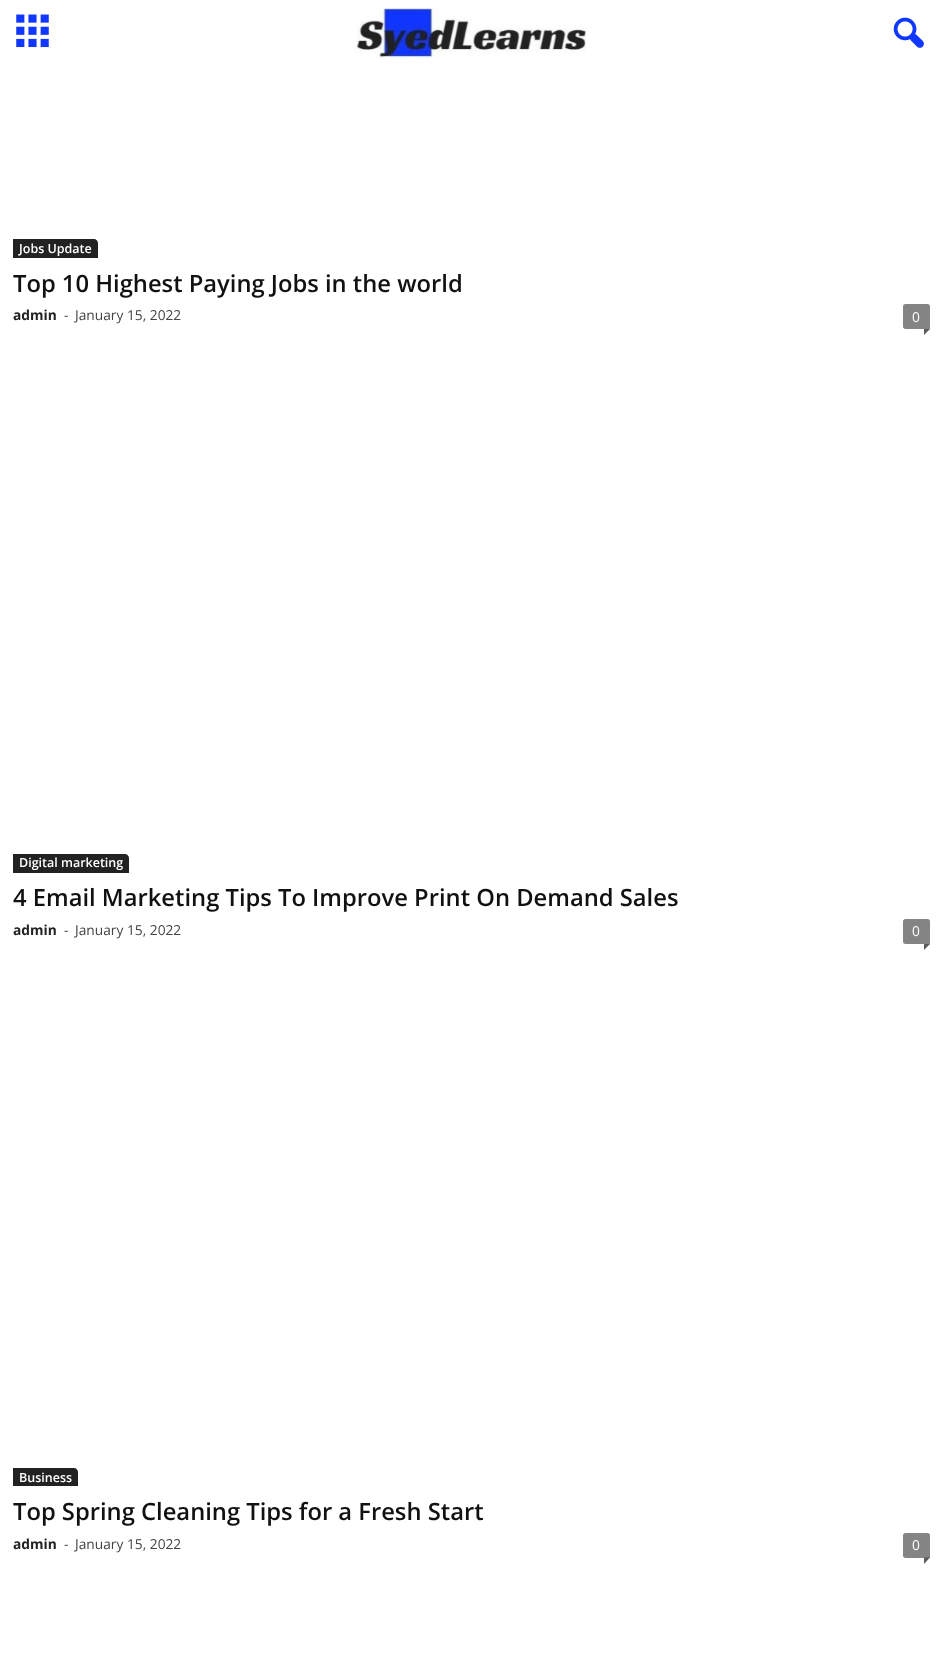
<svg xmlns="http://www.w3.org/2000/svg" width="942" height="1659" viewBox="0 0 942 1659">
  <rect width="100%" height="100%" fill="#fff"/>
  <image x="16" y="14" width="33" height="34" href="img/1.png"/>
  <image x="354" y="8" width="232" height="50" href="img/2.png"/>
  <image x="893" y="17" width="31" height="31" href="img/3.png"/>
  <path d="M13 239H94C96 239 98 241 98 243V258H13Z" fill="#222"/>
  <path d="M905.5 304H927.5C929 304 930 305 930 306.5V329H905.5C904 329 903 328 903 326.5V306.5C903 305 904 304 905.5 304Z" fill="#848484"/>
  <path d="M924 329H930L924 335Z" fill="#5b5b5b"/>
  <path d="M13 854H125C127 854 129 856 129 858V873H13Z" fill="#222"/>
  <path d="M905.5 919H927.5C929 919 930 920 930 921.5V944H905.5C904 944 903 943 903 941.5V921.5C903 920 904 919 905.5 919Z" fill="#848484"/>
  <path d="M924 944H930L924 950Z" fill="#5b5b5b"/>
  <path d="M13 1468H74C76 1468 78 1470 78 1472V1486H13Z" fill="#222"/>
  <path d="M905.5 1533H927.5C929 1533 930 1534 930 1535.5V1558H905.5C904 1558 903 1557 903 1555.5V1535.5C903 1534 904 1533 905.5 1533Z" fill="#848484"/>
  <path d="M924 1557.5H930L924 1564Z" fill="#5b5b5b"/>
  <text x="19" y="253" font-family="Open Sans" font-size="12.5" font-weight="600" fill="#fff">Jobs Update</text>
  <text x="13" y="292" font-family="Open Sans" font-size="23.75" font-weight="600" fill="#111">Top 10 Highest Paying Jobs in the world</text>
  <text x="13" y="320" font-family="Open Sans" font-size="13.75" font-weight="bold" fill="#222">admin</text>
  <g font-family="Open Sans" font-size="13.75" fill="#444">
    <text x="64" y="320">-</text>
    <text x="75" y="320">January 15, 2022</text>
  </g>
  <text x="912" y="322" font-family="Open Sans" font-size="13.75" fill="#fff">0</text>
  <text x="19" y="867" font-family="Open Sans" font-size="12.5" font-weight="600" fill="#fff">Digital marketing</text>
  <text x="13" y="906" font-family="Open Sans" font-size="23.75" font-weight="600" fill="#111">4 Email Marketing Tips To Improve Print On Demand Sales</text>
  <text x="13" y="935" font-family="Open Sans" font-size="13.75" font-weight="bold" fill="#222">admin</text>
  <g font-family="Open Sans" font-size="13.75" fill="#444">
    <text x="64" y="935">-</text>
    <text x="75" y="935">January 15, 2022</text>
  </g>
  <text x="912" y="936" font-family="Open Sans" font-size="13.75" fill="#fff">0</text>
  <text x="19" y="1482" font-family="Open Sans" font-size="12.5" font-weight="600" fill="#fff">Business</text>
  <text x="13" y="1520" font-family="Open Sans" font-size="23.75" font-weight="600" fill="#111">Top Spring Cleaning Tips for a Fresh Start</text>
  <text x="13" y="1549" font-family="Open Sans" font-size="13.75" font-weight="bold" fill="#222">admin</text>
  <g font-family="Open Sans" font-size="13.75" fill="#444">
    <text x="64" y="1549">-</text>
    <text x="75" y="1549">January 15, 2022</text>
  </g>
  <text x="912" y="1550" font-family="Open Sans" font-size="13.75" fill="#fff">0</text>
</svg>
